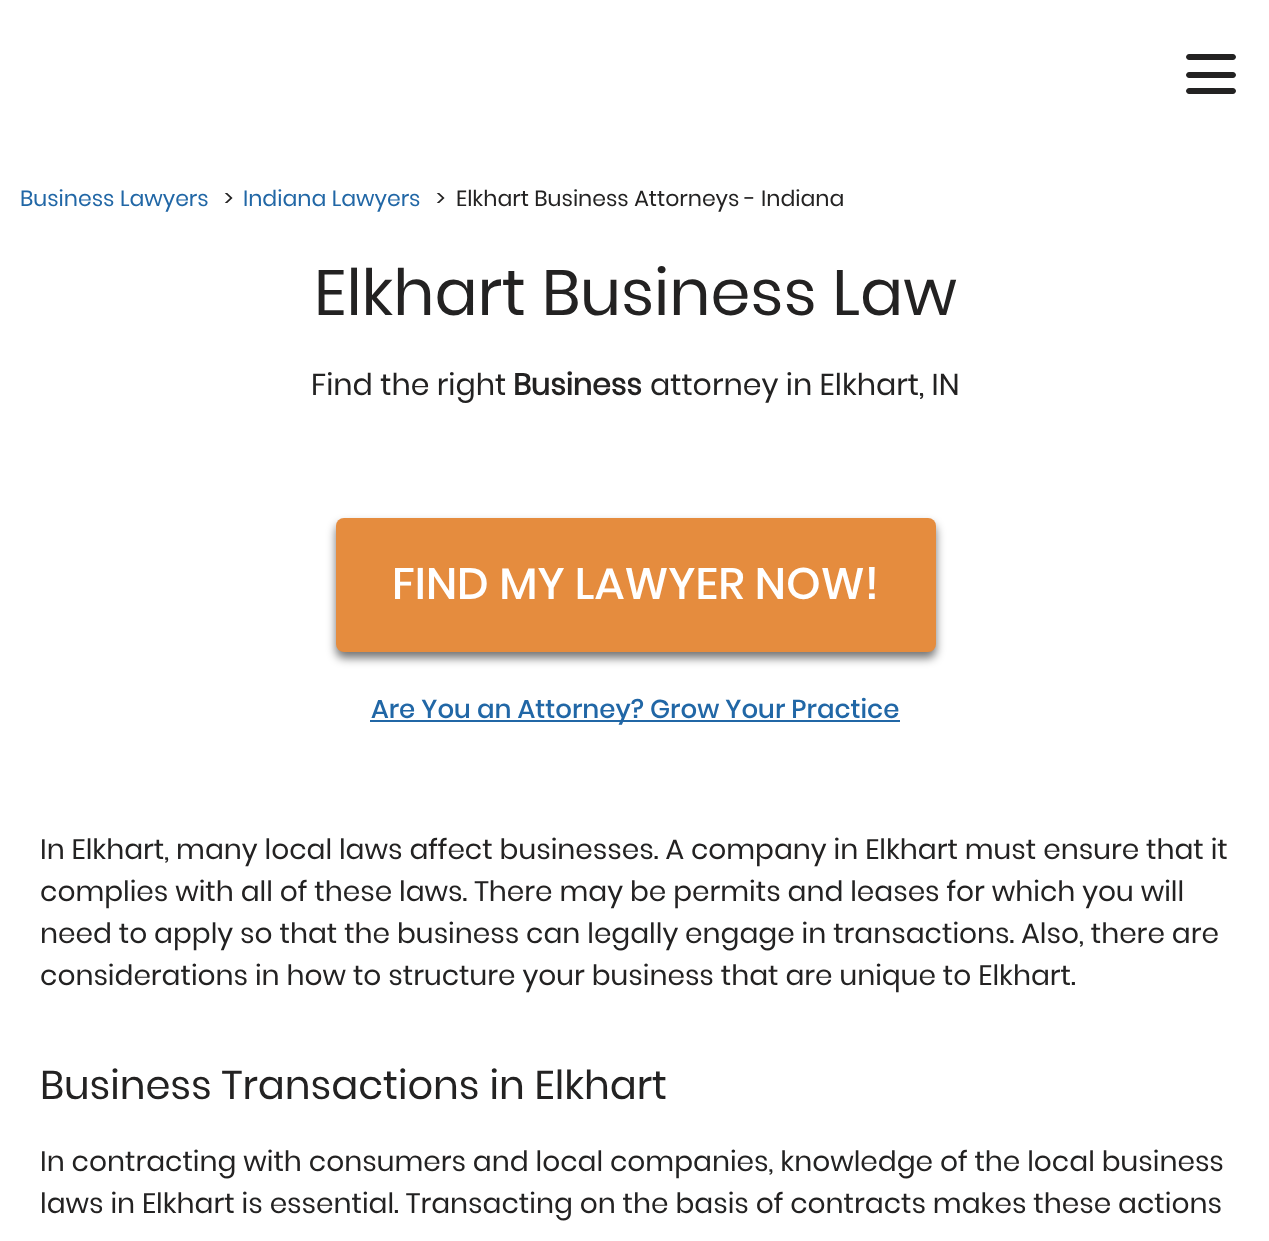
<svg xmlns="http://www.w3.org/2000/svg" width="1269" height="1241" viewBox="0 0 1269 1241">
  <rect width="100%" height="100%" fill="#fff"/>
  <path d="M1189 54H1212V60H1189C1187.5 60 1186 58.5 1186 57C1186 55.5 1187.5 54 1189 54Z" fill="#232222"/>
  <path d="M1212 54H1233C1234.5 54 1236 55.5 1236 57C1236 58.5 1234.5 60 1233 60H1212Z" fill="#232222"/>
  <path d="M1189 72H1212V78H1189C1187.5 78 1186 76.5 1186 75C1186 73.5 1187.5 72 1189 72Z" fill="#232222"/>
  <path d="M1212 72H1233C1234.5 72 1236 73.5 1236 75C1236 76.5 1234.5 78 1233 78H1212Z" fill="#232222"/>
  <path d="M1189 88H1212V94H1189C1187.5 94 1186 92.5 1186 91C1186 89.5 1187.5 88 1189 88Z" fill="#232222"/>
  <path d="M1212 88H1233C1234.5 88 1236 89.5 1236 91C1236 92.5 1234.5 94 1233 94H1212Z" fill="#232222"/>
  <rect x="336" y="524" width="600" height="134" rx="8" fill="#0000008c" filter="blur(5px)"/>
  <rect x="336" y="518" width="600" height="134" rx="8" fill="#e58c3e"/>
  <path d="M370 720h530v2H370z" fill="#2167a6"/>
  <text x="20" y="206" font-family="Poppins" font-size="22" fill="#2167a6">Business Lawyers</text>
  <text x="224" y="206" font-family="Poppins" font-size="22" fill="#232222">&gt;</text>
  <text x="243" y="206" font-family="Poppins" font-size="22" fill="#2167a6">Indiana Lawyers</text>
  <g font-family="Poppins" font-size="22" fill="#232222">
    <text x="436" y="206">&gt;</text>
    <text x="456" y="206">Elkhart Business Attorneys - Indiana</text>
  </g>
  <text x="314" y="315" font-family="Poppins" font-size="64" fill="#232222">Elkhart Business Law</text>
  <text x="311" y="395" font-family="Poppins" font-size="30" fill="#232222">Find the right</text>
  <text x="513" y="395" font-family="Poppins" font-size="30" font-weight="bold" fill="#232222">Business</text>
  <text x="650" y="395" font-family="Poppins" font-size="30" fill="#232222">attorney in Elkhart, IN</text>
  <text x="392" y="599" font-family="Poppins" font-size="44" font-weight="500" fill="#fff">FIND MY LAWYER NOW!</text>
  <text x="371" y="718" font-family="Poppins" font-size="26" font-weight="500" fill="#2167a6">Are You an Attorney? Grow Your Practice</text>
  <g font-family="Poppins" font-size="28" fill="#232222">
    <text x="40" y="859">In Elkhart, many local laws affect businesses. A company in Elkhart must ensure that it</text>
    <text x="40" y="901">complies with all of these laws. There may be permits and leases for which you will</text>
    <text x="40" y="943">need to apply so that the business can legally engage in transactions. Also, there are</text>
    <text x="40" y="985">considerations in how to structure your business that are unique to Elkhart.</text>
  </g>
  <text x="40" y="1099" font-family="Poppins" font-size="40" fill="#232222">Business Transactions in Elkhart</text>
  <g font-family="Poppins" font-size="28" fill="#232222">
    <text x="40" y="1171">In contracting with consumers and local companies, knowledge of the local business</text>
    <text x="40" y="1213">laws in Elkhart is essential. Transacting on the basis of contracts makes these actions</text>
  </g>
</svg>
